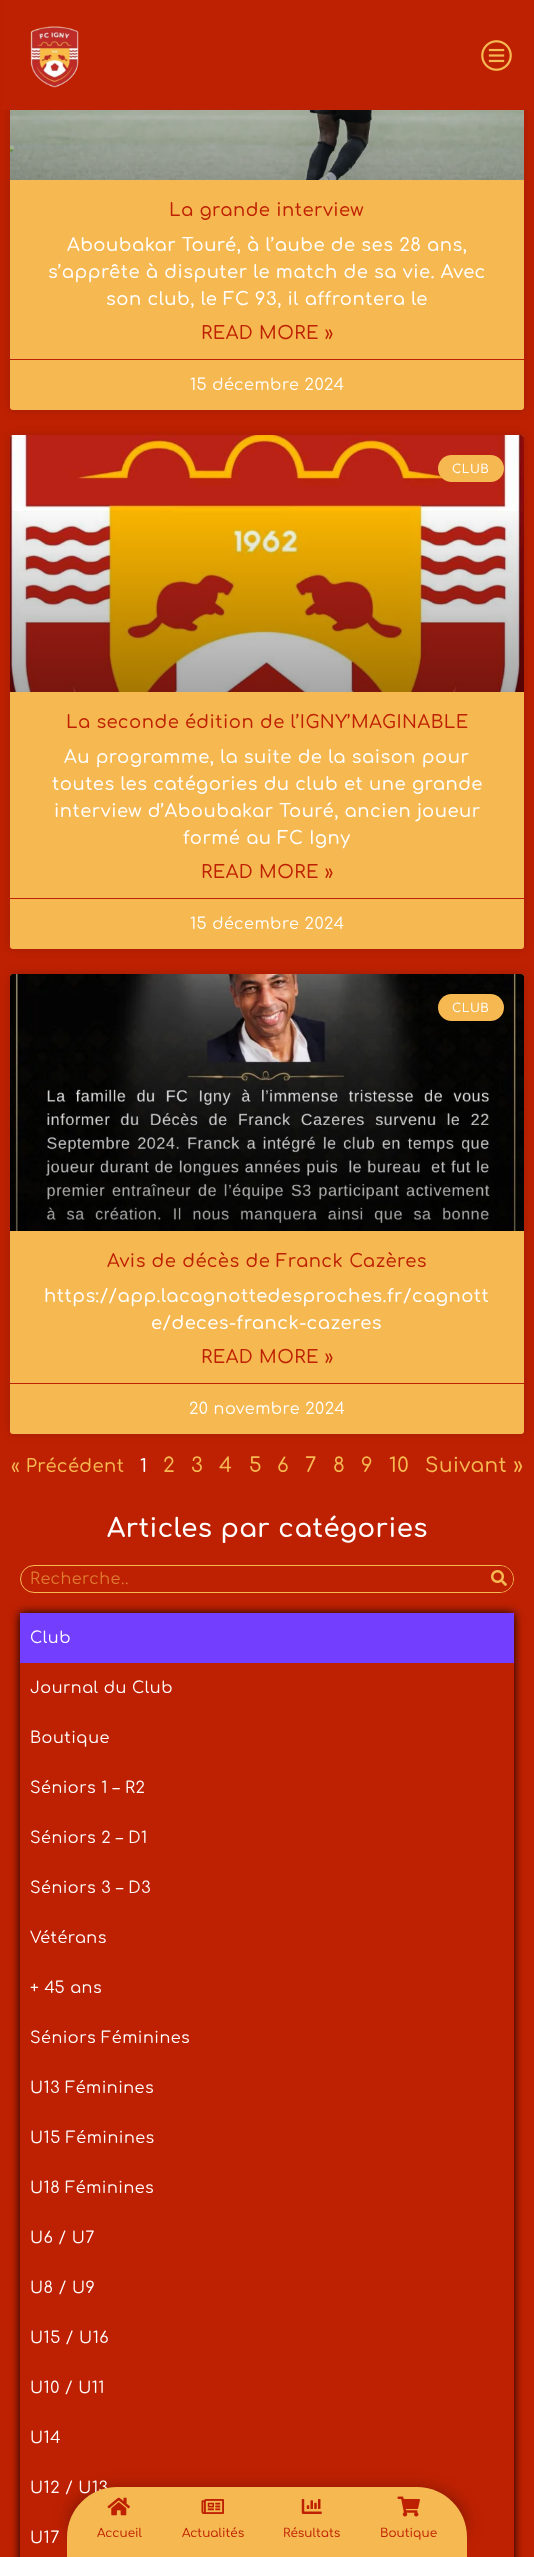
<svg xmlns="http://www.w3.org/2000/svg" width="534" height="2557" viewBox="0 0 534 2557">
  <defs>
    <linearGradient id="g1" gradientUnits="userSpaceOnUse" x1="267" y1="692" x2="267" y2="435"><stop offset="0" stop-color="#000" stop-opacity="0.35"/><stop offset="0.75" stop-color="#000" stop-opacity="0"/></linearGradient>
    <linearGradient id="g2" gradientUnits="userSpaceOnUse" x1="267" y1="1231" x2="267" y2="974"><stop offset="0" stop-color="#000" stop-opacity="0.35"/><stop offset="0.75" stop-color="#000" stop-opacity="0"/></linearGradient>
    <clipPath id="clip1"><path d="M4 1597H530V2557H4ZM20 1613H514V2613H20Z" clip-rule="evenodd"/></clipPath>
  </defs>
  <rect width="100%" height="100%" fill="#be2102"/>
  <rect x="10" y="-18" width="514" height="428" rx="3" fill="#00000026" filter="blur(5px)"/>
  <rect x="10" y="-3" width="514" height="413" rx="3" fill="#f6b851"/>
  <path d="M3 0h528v110H3z" fill="#be2102"/>
  <image x="30" y="26" width="49" height="62" href="img/1.png"/>
  <image x="481" y="40" width="31" height="31" href="img/2.png"/>
  <image x="10" y="110" width="514" height="70" href="img/3.png"/>
  <path d="M10 359h514v1H10z" fill="#be2102"/>
  <rect x="10" y="435" width="514" height="514" rx="3" fill="#00000026" filter="blur(5px)"/>
  <rect x="10" y="435" width="514" height="514" rx="3" fill="#f6b851"/>
  <image x="10" y="435" width="514" height="257" href="img/4.png"/>
  <path d="M10 511h514v181H10z" fill="url(#g1)"/>
  <rect x="438" y="455" width="66" height="27" rx="13.5" fill="#f6b851"/>
  <path d="M10 898h514v1H10z" fill="#be2102"/>
  <rect x="10" y="974" width="514" height="460" rx="3" fill="#00000026" filter="blur(5px)"/>
  <rect x="10" y="974" width="514" height="460" rx="3" fill="#f6b851"/>
  <image x="10" y="974" width="514" height="257" href="img/5.png"/>
  <path d="M15 1050h507v181H15z" fill="url(#g2)"/>
  <rect x="438" y="994" width="66" height="27" rx="13.5" fill="#f6b851"/>
  <path d="M10 1383h514v1H10z" fill="#be2102"/>
  <rect x="20.5" y="1565.5" width="493" height="27" rx="13.5" fill="none" stroke="#f6b851"/>
  <path d="M485 1566H500C507 1566 513 1572 513 1579C513 1586 507 1592 500 1592H485Z" fill="#be2102"/>
  <image x="491" y="1570" width="16" height="16" href="img/6.png"/>
  <g clip-path="url(#clip1)">
    <path d="M20 1613h494v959H20z" fill="#000" filter="blur(5px)"/>
  </g>
  <path d="M20 1613h494v50H20z" fill="#743eff"/>
  <rect x="73" y="2493" width="388" height="58" rx="44" fill="#00000080" filter="blur(10px)"/>
  <text x="169" y="216" font-family="Comfortaa" font-size="18" font-weight="500" letter-spacing="0.5" fill="#be2102">La grande interview</text>
  <g font-family="Comfortaa" font-size="18" font-weight="500" letter-spacing="0.5" fill="#fff">
    <text x="67" y="251">Aboubakar Touré, à l’aube de ses 28 ans,</text>
    <text x="48" y="278">s’apprête à disputer le match de sa vie. Avec</text>
    <text x="106" y="305">son club, le FC 93, il affrontera le</text>
  </g>
  <text x="201" y="339" font-family="Comfortaa" font-size="18" font-weight="500" letter-spacing="0.5" fill="#be2102">READ MORE »</text>
  <text x="190" y="390" font-family="Comfortaa" font-size="16" letter-spacing="0.5" fill="#fff">15 décembre 2024</text>
  <text x="452" y="473" font-family="Comfortaa" font-size="12" font-weight="500" letter-spacing="0.5" fill="#fff">CLUB</text>
  <text x="66" y="728" font-family="Comfortaa" font-size="18" font-weight="500" letter-spacing="0.5" fill="#be2102">La seconde édition de l’IGNY’MAGINABLE</text>
  <g font-family="Comfortaa" font-size="18" font-weight="500" letter-spacing="0.5" fill="#fff">
    <text x="64" y="763">Au programme, la suite de la saison pour</text>
    <text x="52" y="790">toutes les catégories du club et une grande</text>
    <text x="54" y="817">interview d’Aboubakar Touré, ancien joueur</text>
    <text x="183" y="844">formé au FC Igny</text>
  </g>
  <text x="201" y="878" font-family="Comfortaa" font-size="18" font-weight="500" letter-spacing="0.5" fill="#be2102">READ MORE »</text>
  <text x="190" y="929" font-family="Comfortaa" font-size="16" letter-spacing="0.5" fill="#fff">15 décembre 2024</text>
  <text x="452" y="1012" font-family="Comfortaa" font-size="12" font-weight="500" letter-spacing="0.5" fill="#fff">CLUB</text>
  <text x="107" y="1267" font-family="Comfortaa" font-size="18" font-weight="500" letter-spacing="0.5" fill="#be2102">Avis de décès de Franck Cazères</text>
  <g font-family="Comfortaa" font-size="18" font-weight="500" letter-spacing="0.5" fill="#fff">
    <text x="44" y="1302">https://app.lacagnottedesproches.fr/cagnott</text>
    <text x="151" y="1329">e/deces-franck-cazeres</text>
  </g>
  <text x="201" y="1363" font-family="Comfortaa" font-size="18" font-weight="500" letter-spacing="0.5" fill="#be2102">READ MORE »</text>
  <text x="189" y="1414" font-family="Comfortaa" font-size="16" letter-spacing="0.5" fill="#fff">20 novembre 2024</text>
  <text x="11" y="1472" font-family="Comfortaa" font-size="18" font-weight="500" letter-spacing="0.5" fill="#f6b851">« Précédent</text>
  <text x="140" y="1472" font-family="Comfortaa" font-size="18" font-weight="500" letter-spacing="0.5" fill="#fff">1</text>
  <g font-family="Comfortaa" font-size="20" font-weight="500" letter-spacing="0.5" fill="#f6b851">
    <text x="163" y="1472">2</text>
    <text x="191" y="1472">3</text>
    <text x="219" y="1472">4</text>
    <text x="249" y="1472">5</text>
    <text x="277" y="1472">6</text>
    <text x="305" y="1472">7</text>
    <text x="333" y="1472">8</text>
    <text x="361" y="1472">9</text>
    <text x="389" y="1472">10</text>
    <text x="425" y="1472">Suivant »</text>
  </g>
  <text x="107" y="1537" font-family="Comfortaa" font-size="26" font-weight="600" letter-spacing="0.5" fill="#fff">Articles par catégories</text>
  <text x="30" y="1584" font-family="Comfortaa" font-size="16" letter-spacing="0.5" fill="#e07c31">Recherche..</text>
  <g font-family="Comfortaa" font-size="16" letter-spacing="0.5" fill="#fff">
    <text x="30" y="1643">Club</text>
    <text x="30" y="1693">Journal du Club</text>
    <text x="30" y="1743">Boutique</text>
    <text x="30" y="1793">Séniors 1 – R2</text>
    <text x="30" y="1843">Séniors 2 – D1</text>
    <text x="30" y="1893">Séniors 3 – D3</text>
    <text x="30" y="1943">Vétérans</text>
    <text x="30" y="1993">+ 45 ans</text>
    <text x="30" y="2043">Séniors Féminines</text>
    <text x="30" y="2093">U13 Féminines</text>
    <text x="30" y="2143">U15 Féminines</text>
    <text x="30" y="2193">U18 Féminines</text>
    <text x="30" y="2243">U6 / U7</text>
    <text x="30" y="2293">U8 / U9</text>
    <text x="30" y="2343">U15 / U16</text>
    <text x="30" y="2393">U10 / U11</text>
    <text x="30" y="2443">U14</text>
    <text x="30" y="2493">U12 / U13</text>
    <text x="30" y="2543">U17</text>
  </g>
  <path d="M117 2487H417C444.5 2487 467 2509.5 467 2537V2557H67V2537C67 2509.5 89.5 2487 117 2487Z" fill="#f6b851"/>
  <image x="107" y="2497" width="23" height="19" href="img/7.png"/>
  <text x="97" y="2537" font-family="Comfortaa" font-size="12" font-weight="500" fill="#be2102">Accueil</text>
  <image x="201" y="2499" width="23" height="15" href="img/8.png"/>
  <text x="182" y="2537" font-family="Comfortaa" font-size="12" font-weight="500" fill="#be2102">Actualités</text>
  <image x="301" y="2499" width="21" height="15" href="img/9.png"/>
  <text x="283" y="2537" font-family="Comfortaa" font-size="12" font-weight="500" fill="#be2102">Résultats</text>
  <image x="397" y="2496" width="23" height="21" href="img/10.png"/>
  <text x="380" y="2537" font-family="Comfortaa" font-size="12" font-weight="500" fill="#be2102">Boutique</text>
</svg>
